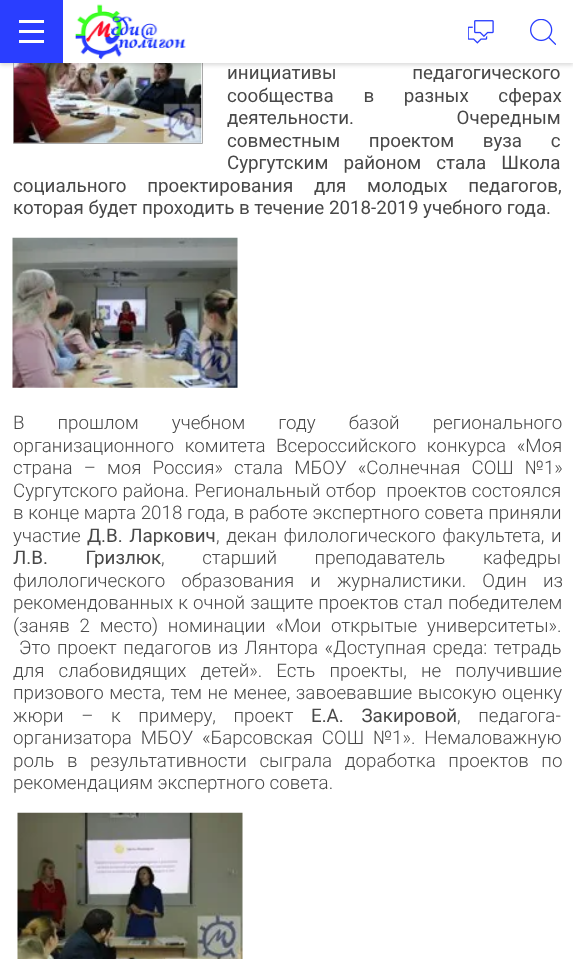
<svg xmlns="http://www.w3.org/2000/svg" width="573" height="959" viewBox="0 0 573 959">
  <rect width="100%" height="100%" fill="#fff"/>
  <path d="M13.5 16.5h189v127H13.5z" fill="none" stroke="#aaa"/>
  <image x="13" y="63" width="189" height="80" href="img/4.png"/>
  <path d="M0 3h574v62H0z" fill="#00000026" filter="blur(2px)"/>
  <path d="M63 0h510v63H63z" fill="#fff"/>
  <path d="M0 0h63v63H0z" fill="#2a3eff"/>
  <path d="M19 20h25v3H19z" fill="#fff"/>
  <path d="M19 30h25v3H19z" fill="#fff"/>
  <path d="M19 40h25v3H19z" fill="#fff"/>
  <image x="75" y="4" width="111" height="56" href="img/1.png"/>
  <image x="468" y="20" width="26" height="24" href="img/2.png"/>
  <image x="530" y="19" width="26" height="26" href="img/3.png"/>
  <image x="12" y="237" width="226" height="151" href="img/5.png"/>
  <image x="17" y="812" width="226" height="147" href="img/6.png"/>
  <g font-family="Roboto" font-size="18.75" fill="#484848">
    <text x="227" y="79" word-spacing="71">инициативы педагогического</text>
    <text x="227" y="102" word-spacing="25">сообщества в разных сферах</text>
    <text x="227" y="124" word-spacing="98">деятельности. Очередным</text>
    <text x="227" y="147" word-spacing="24">совместным проектом вуза с</text>
    <text x="227" y="169" word-spacing="10.5">Сургутским районом стала Школа</text>
    <text x="13" y="192" word-spacing="16">социального проектирования для молодых педагогов,</text>
    <text x="13" y="214">которая будет проходить в течение 2018-2019 учебного года.</text>
  </g>
  <g font-family="Roboto" font-size="18.75" font-weight="300" fill="#484848">
    <text x="13" y="429" word-spacing="28.5">В прошлом учебном году базой регионального</text>
    <text x="13" y="452" word-spacing="6">организационного комитета Всероссийского конкурса «Моя</text>
    <text x="13" y="474" word-spacing="6.5">страна – моя Россия» стала МБОУ «Солнечная СОШ №1»</text>
    <text x="13" y="497" word-spacing="0.5" xml:space="preserve">Сургутского района. Региональный отбор  проектов состоялся</text>
    <text x="13" y="519" word-spacing="0.1">в конце марта 2018 года, в работе экспертного совета приняли</text>
    <text x="13" y="542">участие</text>
  </g>
  <text x="87" y="542" word-spacing="2" font-family="Roboto" font-size="18.75" fill="#484848">Д.В. Ларкович</text>
  <text x="216" y="542" word-spacing="2" font-family="Roboto" font-size="18.75" font-weight="300" fill="#484848">, декан филологического факультета, и</text>
  <text x="13" y="564" word-spacing="33" font-family="Roboto" font-size="18.75" fill="#484848">Л.В. Гризлюк</text>
  <g font-family="Roboto" font-size="18.75" font-weight="300" fill="#484848">
    <text x="161" y="564" word-spacing="33">, старший преподаватель кафедры</text>
    <text x="13" y="587" word-spacing="11.5">филологического образования и журналистики. Один из</text>
    <text x="13" y="609" word-spacing="0.5">рекомендованных к очной защите проектов стал победителем</text>
    <text x="13" y="632" word-spacing="5.25">(заняв 2 место) номинации «Мои открытые университеты».</text>
    <text x="19" y="654" word-spacing="2">Это проект педагогов из Лянтора «Доступная среда: тетрадь</text>
    <text x="13" y="677" word-spacing="9.5">для слабовидящих детей». Есть проекты, не получившие</text>
    <text x="13" y="699" word-spacing="1">призового места, тем не менее, завоевавшие высокую оценку</text>
    <text x="13" y="722" word-spacing="13">жюри – к примеру, проект</text>
  </g>
  <text x="311" y="722" word-spacing="13" font-family="Roboto" font-size="18.75" fill="#484848">Е.А. Закировой</text>
  <g font-family="Roboto" font-size="18.75" font-weight="300" fill="#484848">
    <text x="457" y="722" word-spacing="13">, педагога-</text>
    <text x="13" y="744" word-spacing="4.25">организатора МБОУ «Барсовская СОШ №1». Немаловажную</text>
    <text x="13" y="767" word-spacing="8">роль в результативности сыграла доработка проектов по</text>
    <text x="13" y="789">рекомендациям экспертного совета.</text>
  </g>
</svg>
